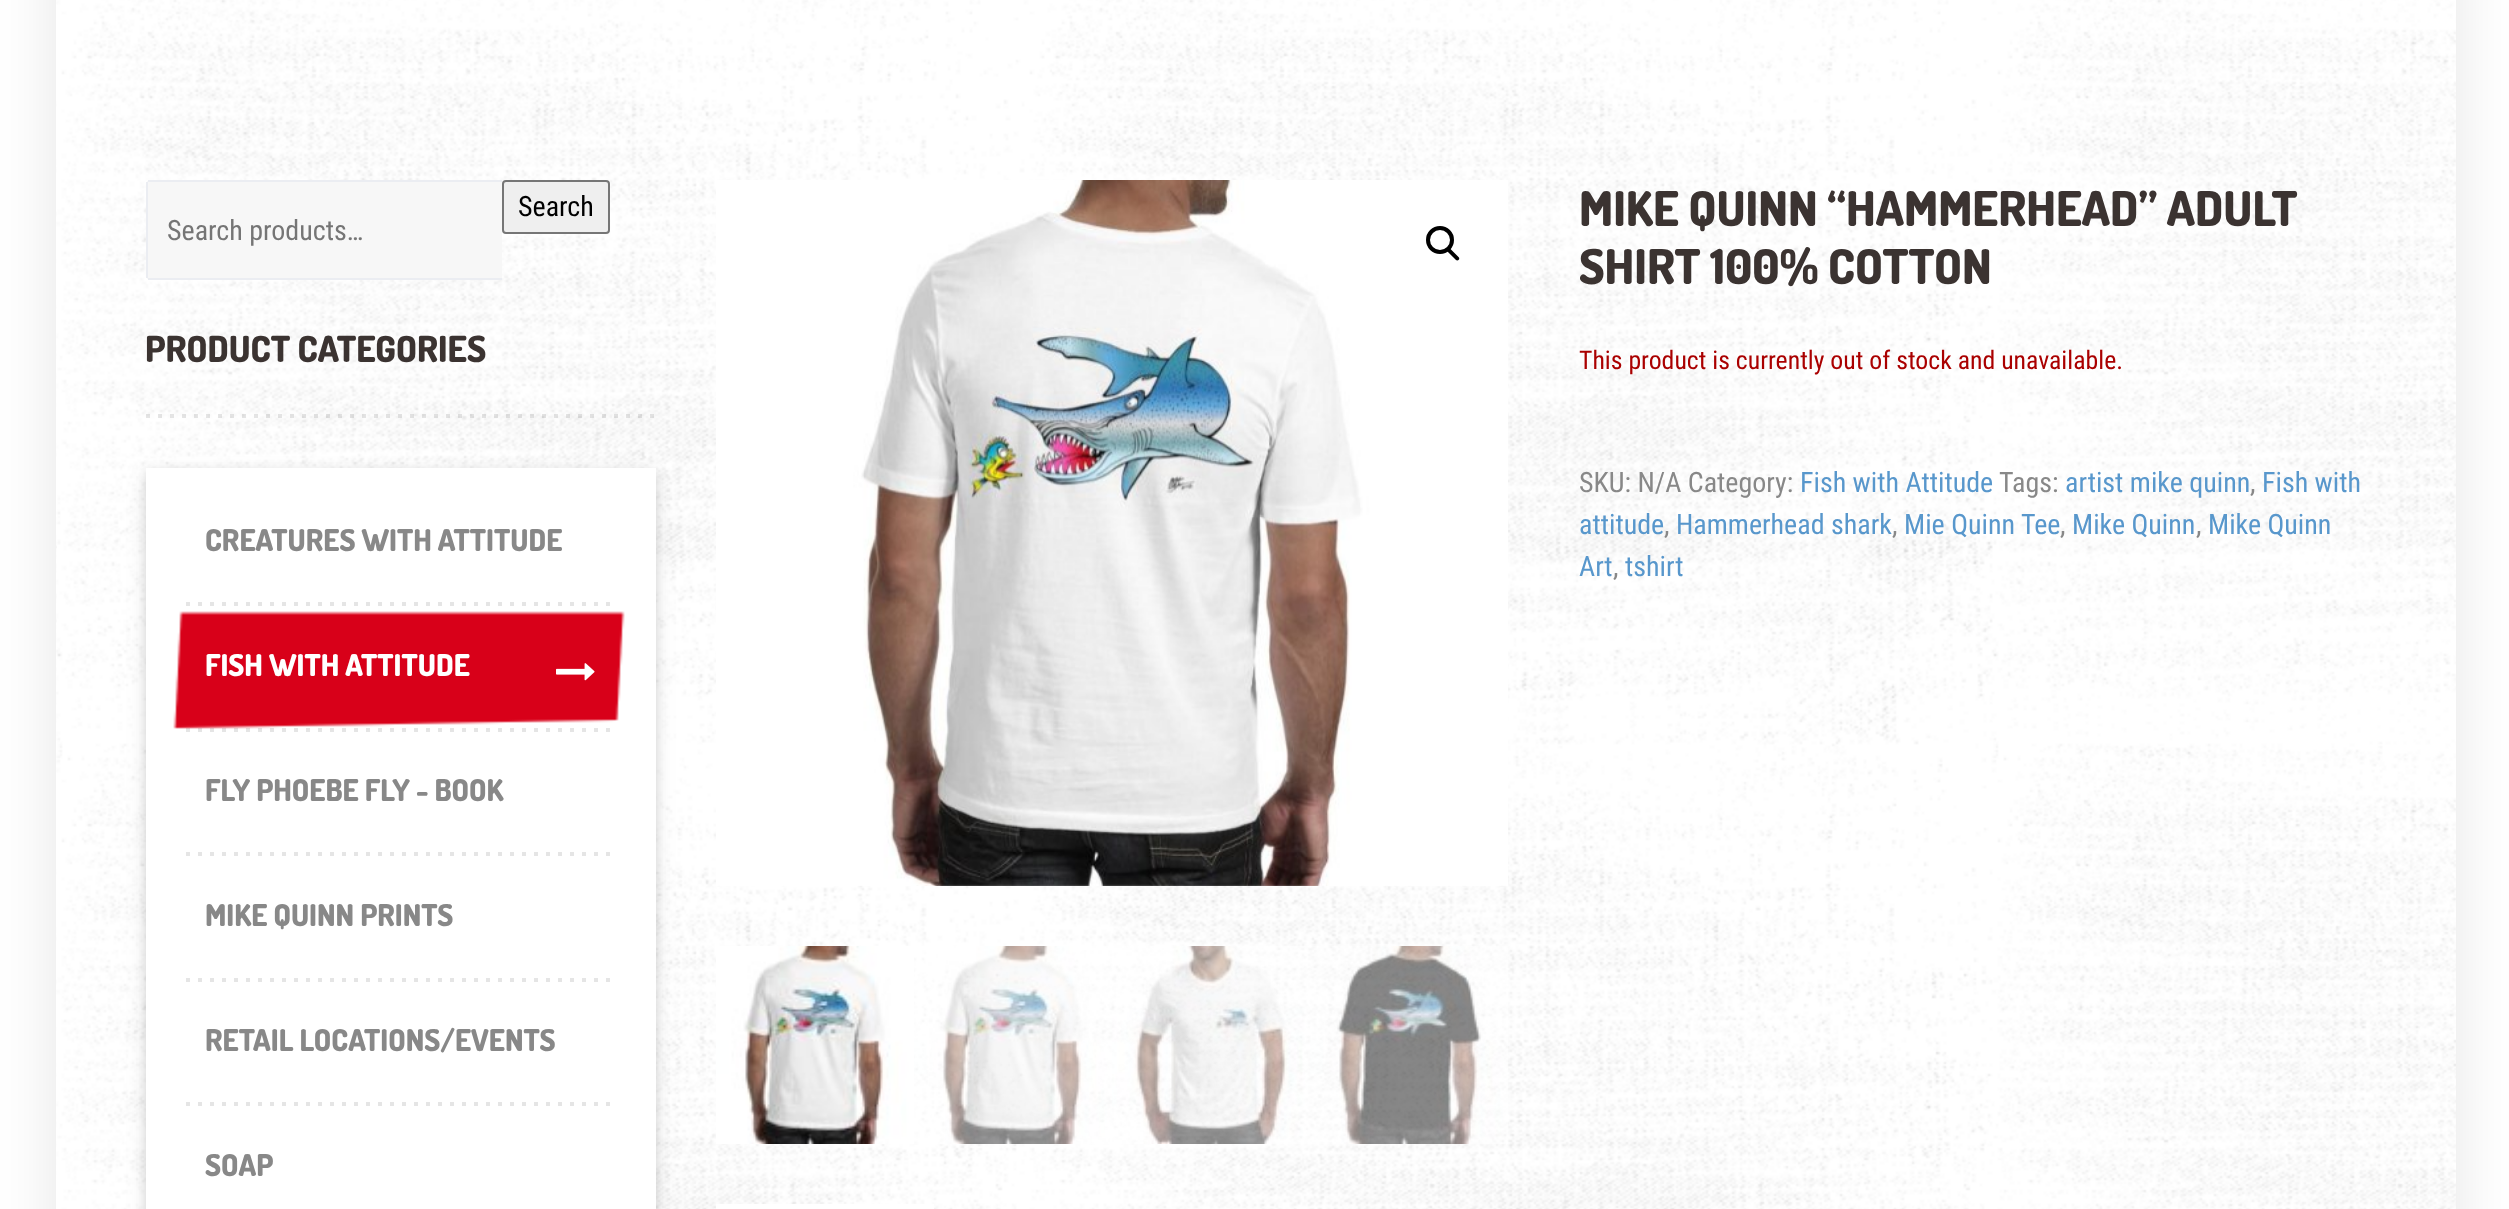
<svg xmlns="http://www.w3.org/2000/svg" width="2509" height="1209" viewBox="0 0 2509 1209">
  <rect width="100%" height="100%" fill="#fff"/>
  <path d="M56 -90h2400v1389H56z" fill="#0000001a" filter="blur(30px)"/>
  <image x="56" y="0" width="2400" height="1209" href="img/1.png"/>
  <rect x="503" y="181" width="106" height="52" rx="3" fill="#efefef" stroke="#767676" stroke-width="2"/>
  <path d="M150 180H502V280H150C148 280 146 278 146 276V184C146 182 148 180 150 180Z" fill="#f7f7f7"/>
  <path d="M148 180h354v2H148z" fill="#ebedf2"/>
  <path d="M148 278h354v2H148z" fill="#ebedf2"/>
  <path d="M146 182h2v96H146z" fill="#ebedf2"/>
  <image x="146" y="414" width="508" height="4" href="img/2.png"/>
  <path d="M146 472h510v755H146z" fill="#00000026" filter="blur(6px)"/>
  <path d="M146 476h510v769H146z" fill="#0000000d" filter="blur(12px)"/>
  <path d="M146 468h510v741H146z" fill="#fff"/>
  <image x="186" y="602" width="424" height="4" href="img/3.png"/>
  <image x="186" y="728" width="424" height="4" href="img/3.png"/>
  <image x="173" y="611" width="452" height="118" href="img/4.png"/>
  <image x="556" y="663" width="39" height="18" href="img/5.png"/>
  <image x="186" y="852" width="424" height="4" href="img/3.png"/>
  <image x="186" y="978" width="424" height="4" href="img/3.png"/>
  <image x="186" y="1102" width="424" height="4" href="img/3.png"/>
  <image x="716" y="180" width="792" height="706" href="img/6.png"/>
  <circle cx="1440" cy="240" r="12" fill="none" stroke="#000" stroke-width="4"/>
  <path d="M1447.5 248.5C1448 247.5 1449.5 247.5 1450 248.5L1458.5 257C1459.5 258 1459.5 259 1458.5 260C1458 260.5 1456.5 260.5 1456 260L1447.5 251.5C1446.5 250.5 1446.5 249.5 1447.5 248.5Z" fill="#000"/>
  <image x="716" y="946" width="198" height="198" href="img/7.png"/>
  <image x="914" y="946" width="198" height="198" href="img/8.png"/>
  <image x="1112" y="946" width="198" height="198" href="img/9.png"/>
  <image x="1310" y="946" width="198" height="198" href="img/10.png"/>
  <path d="M716 1204h218v5H716z" fill="#fff"/>
  <text x="518" y="216" font-family="Roboto Condensed" font-size="28" fill="#000">Search</text>
  <text x="167" y="240" font-family="Roboto Condensed" font-size="28" fill="#757575">Search products…</text>
  <text x="145" y="362" font-family="Dosis" font-size="36" font-weight="800" fill="#3b3331">PRODUCT CATEGORIES</text>
  <text x="205" y="551" font-family="Dosis" font-size="30" font-weight="800" fill="#888">CREATURES WITH ATTITUDE</text>
  <text x="205" y="676" font-family="Dosis" font-size="30" font-weight="800" fill="#fff">FISH WITH ATTITUDE</text>
  <g font-family="Dosis" font-size="30" font-weight="800" fill="#888">
    <text x="205" y="801">FLY PHOEBE FLY - BOOK</text>
    <text x="205" y="926">MIKE QUINN PRINTS</text>
    <text x="205" y="1051">RETAIL LOCATIONS/EVENTS</text>
    <text x="205" y="1176">SOAP</text>
  </g>
  <g font-family="Dosis" font-size="48" font-weight="800" fill="#3b3331">
    <text x="1579" y="226">MIKE QUINN “HAMMERHEAD” ADULT</text>
    <text x="1579" y="284">SHIRT 100% COTTON</text>
  </g>
  <text x="1579" y="369" font-family="Roboto Condensed" font-size="25.75" fill="#a00">This product is currently out of stock and unavailable.</text>
  <text x="1579" y="492" font-family="Roboto Condensed" font-size="28" fill="#888">SKU: N/A Category:</text>
  <text x="1800" y="492" font-family="Roboto Condensed" font-size="28" fill="#5897cc">Fish with Attitude</text>
  <text x="1999" y="492" font-family="Roboto Condensed" font-size="28" fill="#888">Tags:</text>
  <text x="2065" y="492" font-family="Roboto Condensed" font-size="28" fill="#5897cc">artist mike quinn</text>
  <text x="2250" y="492" font-family="Roboto Condensed" font-size="28" fill="#888">,</text>
  <g font-family="Roboto Condensed" font-size="28" fill="#5897cc">
    <text x="2262" y="492">Fish with</text>
    <text x="1579" y="534">attitude</text>
  </g>
  <text x="1664" y="534" font-family="Roboto Condensed" font-size="28" fill="#888">,</text>
  <text x="1676" y="534" font-family="Roboto Condensed" font-size="28" fill="#5897cc">Hammerhead shark</text>
  <text x="1892" y="534" font-family="Roboto Condensed" font-size="28" fill="#888">,</text>
  <text x="1904" y="534" font-family="Roboto Condensed" font-size="28" fill="#5897cc">Mie Quinn Tee</text>
  <text x="2060" y="534" font-family="Roboto Condensed" font-size="28" fill="#888">,</text>
  <text x="2072" y="534" font-family="Roboto Condensed" font-size="28" fill="#5897cc">Mike Quinn</text>
  <text x="2196" y="534" font-family="Roboto Condensed" font-size="28" fill="#888">,</text>
  <g font-family="Roboto Condensed" font-size="28" fill="#5897cc">
    <text x="2208" y="534">Mike Quinn</text>
    <text x="1579" y="576">Art</text>
  </g>
  <text x="1613" y="576" font-family="Roboto Condensed" font-size="28" fill="#888">,</text>
  <text x="1625" y="576" font-family="Roboto Condensed" font-size="28" fill="#5897cc">tshirt</text>
</svg>
